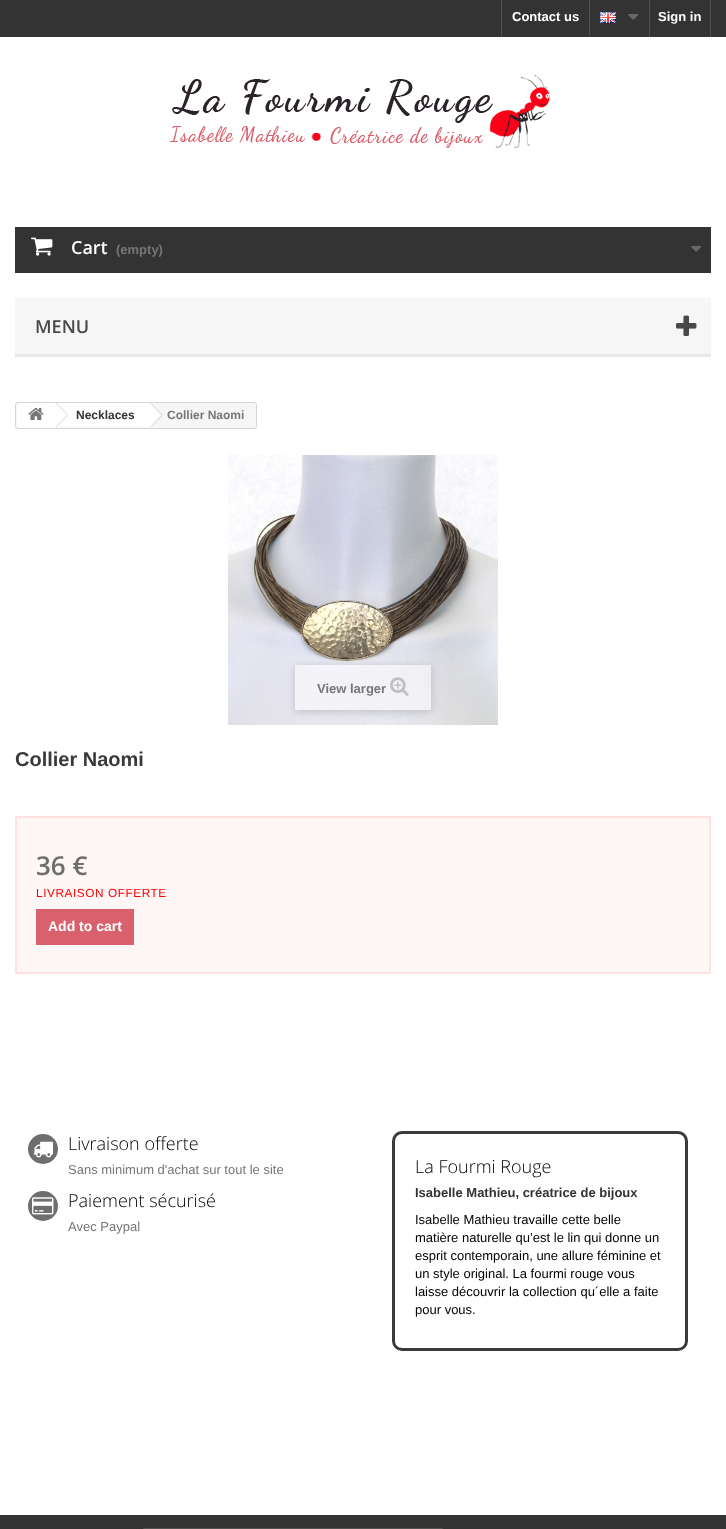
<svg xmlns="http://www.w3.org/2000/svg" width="726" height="1529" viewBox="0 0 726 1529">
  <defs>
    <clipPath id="clip1"><path d="M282 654H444V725H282ZM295 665H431V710H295Z" clip-rule="evenodd"/></clipPath>
  </defs>
  <rect width="100%" height="100%" fill="#fff"/>
  <path d="M0 0h726v37H0z" fill="#333"/>
  <path d="M501 0h1v37H501z" fill="#515151"/>
  <path d="M589 0h1v36H589z" fill="#515151"/>
  <image x="600" y="12" width="16" height="11" href="img/1.png"/>
  <image x="628" y="14" width="11" height="6" href="img/2.png"/>
  <path d="M710 0h1v37H710z" fill="#515151"/>
  <path d="M649 0h1v37H649z" fill="#515151"/>
  <image x="169" y="75" width="381" height="74" href="img/3.png"/>
  <path d="M15 227h696v46H15z" fill="#333"/>
  <image x="31" y="237" width="22" height="19" href="img/4.png"/>
  <image x="691" y="246" width="11" height="6" href="img/2.png"/>
  <path d="M15 298h696v56H15z" fill="#f6f6f6"/>
  <path d="M15 354h696v3H15z" fill="#e9e9e9"/>
  <image x="676" y="315" width="21" height="21" href="img/5.png"/>
  <rect x="15.5" y="402.5" width="241" height="26" rx="2.5" fill="#f6f6f6" stroke="#d6d4d4"/>
  <path d="M20 403H55V428H20C18.5 428 17 426.5 17 425V406C17 404.5 18.5 403 20 403Z" fill="#fff"/>
  <image x="28" y="407" width="16" height="13" href="img/6.png"/>
  <path d="M55 403h94v24H55z" fill="#fff"/>
  <path d="M56.5 403L68 414.5L67.5 415L56 403.5ZM67.5 415L68 415.5L56.5 427L56 426.5Z" fill="#d6d4d4"/>
  <path d="M152 403.5L161.5 413.5C162.5 414.5 162.5 415.5 161.5 416.5L152 426.5C151 427 150 427 149 426.5L139 416.5C138.5 415.5 138.5 414.5 139 413.5L149 403.5C150 403 151 403 152 403.5Z" fill="#fff"/>
  <path d="M151 403L162.5 414.5L161.5 415L150.5 403.5ZM161.5 415L162.5 415.5L151 427L150.5 426.5Z" fill="#d6d4d4"/>
  <image x="228" y="455" width="270" height="270" href="img/7.png"/>
  <g clip-path="url(#clip1)">
    <path d="M295 667h136v45H295z" fill="#00000029" filter="blur(4px)"/>
  </g>
  <path d="M295 665h136v45H295z" fill="#ffffff80"/>
  <image x="390" y="677" width="19" height="19" href="img/8.png"/>
  <path d="M16 817h694v156H16z" fill="#fff6f6" stroke="#ffe1e1" stroke-width="2"/>
  <path d="M36 909h98v36H36z" fill="#d9616d"/>
  <circle cx="43" cy="1149" r="15" fill="#6f6d6d"/>
  <image x="33" y="1141" width="20" height="17" href="img/9.png"/>
  <circle cx="43" cy="1206" r="15" fill="#6f6d6d"/>
  <image x="32" y="1197" width="22" height="18" href="img/10.png"/>
  <rect x="393.5" y="1132.5" width="293" height="217" rx="8.5" fill="none" stroke="#3a3a3a" stroke-width="3"/>
  <path d="M0 1515h726v14H0z" fill="#333"/>
  <path d="M143.5 1528.5h299v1H143.5z" fill="none" stroke="#515151"/>
  <g font-family="Liberation Sans" font-size="13" font-weight="bold" fill="#fff">
    <text x="512" y="21">Contact us</text>
    <text x="658" y="21">Sign in</text>
  </g>
  <text x="71" y="254" font-family="Open Sans" font-size="18" font-weight="600" fill="#fff">Cart</text>
  <text x="116" y="254" font-family="Liberation Sans" font-size="13" font-weight="bold" fill="#777676">(empty)</text>
  <text x="35" y="333" font-family="Open Sans" font-size="18" font-weight="600" fill="#484848">MENU</text>
  <text x="76" y="419" font-family="Liberation Sans" font-size="12" font-weight="bold" fill="#333">Necklaces</text>
  <text x="167" y="419" font-family="Liberation Sans" font-size="12" font-weight="bold" fill="#777676">Collier Naomi</text>
  <text x="317" y="693" font-family="Liberation Sans" font-size="13" font-weight="bold" fill="#777676">View larger</text>
  <text x="15" y="766" font-family="Liberation Sans" font-size="20" font-weight="bold" fill="#3a3939">Collier Naomi</text>
  <text x="36" y="875" font-family="Open Sans" font-size="26" font-weight="600" fill="#6e6e6e">36 €</text>
  <text x="36" y="897" font-family="Liberation Sans" font-size="11.75" letter-spacing="0.6" fill="#f00">LIVRAISON OFFERTE</text>
  <text x="48" y="931" font-family="Liberation Sans" font-size="14" font-weight="bold" fill="#fff">Add to cart</text>
  <text x="68" y="1150" font-family="Open Sans" font-size="18" font-weight="300" fill="#000">Livraison offerte</text>
  <text x="68" y="1174" font-family="Liberation Sans" font-size="13" fill="#777676">Sans minimum d'achat sur tout le site</text>
  <text x="68" y="1207" font-family="Open Sans" font-size="18" font-weight="300" fill="#000">Paiement sécurisé</text>
  <text x="68" y="1231" font-family="Liberation Sans" font-size="13" fill="#777676">Avec Paypal</text>
  <text x="415" y="1173" font-family="Open Sans" font-size="18" font-weight="300" fill="#000">La Fourmi Rouge</text>
  <text x="415" y="1197" font-family="Liberation Sans" font-size="13" font-weight="bold" fill="#333">Isabelle Mathieu, créatrice de bijoux</text>
  <g font-family="Liberation Sans" font-size="13" fill="#000">
    <text x="415" y="1224">Isabelle Mathieu travaille cette belle</text>
    <text x="415" y="1242">matière naturelle qu’est le lin qui donne un</text>
    <text x="415" y="1260">esprit contemporain, une allure féminine et</text>
    <text x="415" y="1278">un style original. La fourmi rouge vous</text>
    <text x="415" y="1296">laisse découvrir la collection qu´elle a faite</text>
    <text x="415" y="1314">pour vous.</text>
  </g>
</svg>
